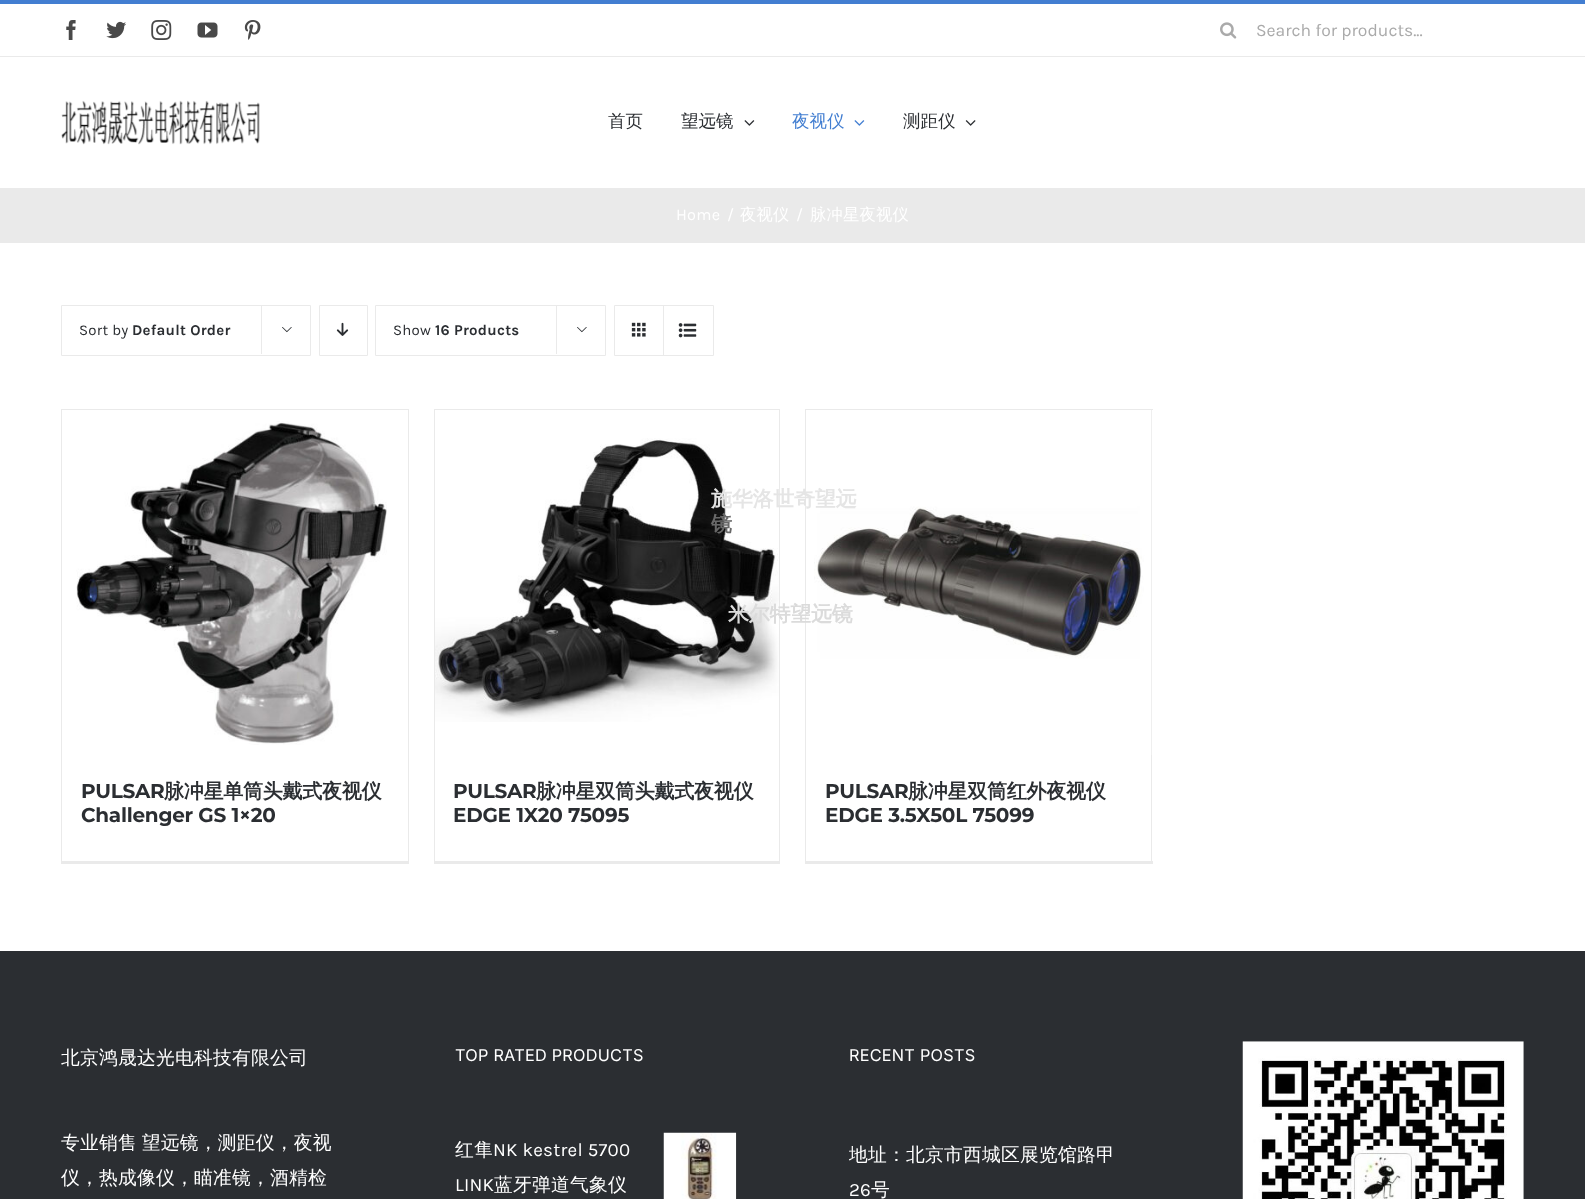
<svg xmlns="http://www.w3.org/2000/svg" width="1585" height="1199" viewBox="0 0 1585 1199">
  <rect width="100%" height="100%" fill="#fff"/>
  <path d="M0 0h1585v4H0z" fill="#427ed1"/>
  <image x="66" y="20" width="10" height="20" href="img/1.png"/>
  <image x="106" y="21" width="21" height="18" href="img/2.png"/>
  <image x="151" y="20" width="21" height="20" href="img/3.png"/>
  <image x="197" y="22" width="21" height="16" href="img/4.png"/>
  <image x="244" y="20" width="17" height="20" href="img/5.png"/>
  <image x="1220" y="22" width="17" height="17" href="img/6.png"/>
  <path d="M0 56h1585v1H0z" fill="#eaeaea"/>
  <image x="61" y="100" width="199" height="45" href="img/7.png"/>
  <image x="744" y="120" width="11" height="6" href="img/8.png"/>
  <image x="854" y="120" width="11" height="6" href="img/9.png"/>
  <image x="965" y="120" width="11" height="6" href="img/10.png"/>
  <path d="M0 188h1585v55H0z" fill="#eaeaea"/>
  <path d="M61.5 305.5h249v50H61.5z" fill="none" stroke="#eaeaea"/>
  <path d="M261 305h1v49H261z" fill="#eaeaea"/>
  <image x="282" y="327" width="10" height="6" href="img/11.png"/>
  <path d="M319.5 305.5h48v50H319.5z" fill="none" stroke="#eaeaea"/>
  <image x="336" y="322" width="13" height="14" href="img/12.png"/>
  <path d="M375.5 305.5h230v50H375.5z" fill="none" stroke="#eaeaea"/>
  <path d="M556 305h1v49H556z" fill="#eaeaea"/>
  <image x="577" y="327" width="10" height="6" href="img/11.png"/>
  <path d="M614.5 305.5h99v50H614.5z" fill="none" stroke="#eaeaea"/>
  <path d="M663 306h1v49H663z" fill="#eaeaea"/>
  <image x="631" y="322" width="15" height="15" href="img/13.png"/>
  <image x="678" y="323" width="19" height="15" href="img/14.png"/>
  <path d="M61 409h348v1H61z" fill="#eaeaea"/>
  <path d="M408 409h1v455H408z" fill="#eaeaea"/>
  <path d="M61 861h348v3H61z" fill="#eaeaea"/>
  <path d="M61 409h1v455H61z" fill="#eaeaea"/>
  <image x="76" y="421" width="311" height="324" href="img/15.png"/>
  <path d="M434 409h346v1H434z" fill="#eaeaea"/>
  <path d="M779 409h1v455H779z" fill="#eaeaea"/>
  <path d="M434 861h346v3H434z" fill="#eaeaea"/>
  <path d="M434 409h1v455H434z" fill="#eaeaea"/>
  <image x="435" y="438" width="344" height="284" href="img/16.png"/>
  <path d="M805 409h348v1H805z" fill="#eaeaea"/>
  <path d="M1151 409h1v455H1151z" fill="#eaeaea"/>
  <path d="M805 861h348v3H805z" fill="#eaeaea"/>
  <path d="M805 409h1v455H805z" fill="#eaeaea"/>
  <image x="814" y="410" width="338" height="345" href="img/17.png"/>
  <path d="M0 951h1585v248H0z" fill="#2b2e32"/>
  <image x="663" y="1132" width="74" height="67" href="img/18.png"/>
  <image x="1242" y="1041" width="282" height="158" href="img/19.png"/>
  <text x="1256" y="36" font-family="Karla" font-size="17.5" fill="#aaa">Search for products...</text>
  <g font-family="WenQuanYi Zen Hei" font-size="17.5" font-weight="500" fill="#2b2e32">
    <text x="608" y="127">首页</text>
    <text x="681" y="127">望远镜</text>
  </g>
  <text x="711" y="506" font-family="WenQuanYi Zen Hei" font-size="21" font-weight="bold" letter-spacing="-0.25" fill="#e5e5e5">施华洛世奇望远</text>
  <text x="711" y="531" font-family="WenQuanYi Zen Hei" font-size="21" font-weight="bold" letter-spacing="-0.25" fill="#686868">镜</text>
  <text x="728" y="621" font-family="WenQuanYi Zen Hei" font-size="21" font-weight="bold" letter-spacing="-0.25" fill="#dbdbdb">米尔特望远镜</text>
  <text x="792" y="127" font-family="WenQuanYi Zen Hei" font-size="17.5" font-weight="500" fill="#427ed1">夜视仪</text>
  <text x="903" y="127" font-family="WenQuanYi Zen Hei" font-size="17.5" font-weight="500" fill="#2b2e32">测距仪</text>
  <g font-family="Karla" font-size="16.25" letter-spacing="0.25" fill="#fff">
    <text x="676" y="220">Home</text>
    <text x="727" y="220">/</text>
  </g>
  <text x="740" y="220" font-family="WenQuanYi Zen Hei" font-size="16.25" font-weight="500" letter-spacing="0.25" fill="#fff">夜视仪</text>
  <text x="796" y="220" font-family="Karla" font-size="16.25" letter-spacing="0.25" fill="#fff">/</text>
  <text x="810" y="220" font-family="WenQuanYi Zen Hei" font-size="16.25" font-weight="500" letter-spacing="0.25" fill="#fff">脉冲星夜视仪</text>
  <text x="79" y="335" font-family="Karla" font-size="15" letter-spacing="0.25" fill="#2b2e32">Sort by</text>
  <text x="132" y="335" font-family="Karla" font-size="15" font-weight="bold" letter-spacing="0.25" fill="#2b2e32">Default Order</text>
  <text x="393" y="335" font-family="Karla" font-size="15" letter-spacing="0.25" fill="#2b2e32">Show</text>
  <text x="435" y="335" font-family="Karla" font-size="15" font-weight="bold" letter-spacing="0.25" fill="#2b2e32">16 Products</text>
  <text x="81" y="798" font-family="Montserrat" font-size="20" font-weight="bold" letter-spacing="-0.25" fill="#2b2e32">PULSAR</text>
  <text x="164" y="798" font-family="WenQuanYi Zen Hei" font-size="20" font-weight="bold" letter-spacing="-0.25" fill="#2b2e32">脉冲星单筒头戴式夜视仪</text>
  <g font-family="Montserrat" font-size="20" font-weight="bold" letter-spacing="-0.25" fill="#2b2e32">
    <text x="81" y="822">Challenger GS 1×20</text>
    <text x="453" y="798">PULSAR</text>
  </g>
  <text x="536" y="798" font-family="WenQuanYi Zen Hei" font-size="20" font-weight="bold" letter-spacing="-0.25" fill="#2b2e32">脉冲星双筒头戴式夜视仪</text>
  <g font-family="Montserrat" font-size="20" font-weight="bold" letter-spacing="-0.25" fill="#2b2e32">
    <text x="453" y="822">EDGE 1X20 75095</text>
    <text x="825" y="798">PULSAR</text>
  </g>
  <text x="908" y="798" font-family="WenQuanYi Zen Hei" font-size="20" font-weight="bold" letter-spacing="-0.25" fill="#2b2e32">脉冲星双筒红外夜视仪</text>
  <text x="825" y="822" font-family="Montserrat" font-size="20" font-weight="bold" letter-spacing="-0.25" fill="#2b2e32">EDGE 3.5X50L 75099</text>
  <g font-family="WenQuanYi Zen Hei" font-size="18.75" font-weight="500" letter-spacing="0.25" fill="#fff">
    <text x="61" y="1064">北京鸿晟达光电科技有限公司</text>
    <text x="61" y="1149" word-spacing="-1">专业销售 望远镜，测距仪，夜视</text>
    <text x="61" y="1184">仪，热成像仪，瞄准镜，酒精检</text>
  </g>
  <text x="455" y="1061" font-family="Inter" font-size="16.25" letter-spacing="0.25" fill="#fff">TOP RATED PRODUCTS</text>
  <text x="455" y="1156" font-family="WenQuanYi Zen Hei" font-size="18.75" font-weight="500" letter-spacing="0.25" fill="#fff">红隼</text>
  <g font-family="Karla" font-size="18.75" letter-spacing="0.25" fill="#fff">
    <text x="493" y="1156">NK kestrel 5700</text>
    <text x="455" y="1191">LINK</text>
  </g>
  <text x="494" y="1191" font-family="WenQuanYi Zen Hei" font-size="18.75" font-weight="500" letter-spacing="0.25" fill="#fff">蓝牙弹道气象仪</text>
  <text x="849" y="1061" font-family="Inter" font-size="16.25" letter-spacing="0.25" fill="#fff">RECENT POSTS</text>
  <text x="849" y="1161" font-family="WenQuanYi Zen Hei" font-size="18.75" font-weight="500" letter-spacing="0.25" fill="#fff">地址：北京市西城区展览馆路甲</text>
  <text x="849" y="1196" font-family="Karla" font-size="18.75" letter-spacing="0.25" fill="#fff">26</text>
  <text x="871" y="1196" font-family="WenQuanYi Zen Hei" font-size="18.75" font-weight="500" letter-spacing="0.25" fill="#fff">号</text>
</svg>
